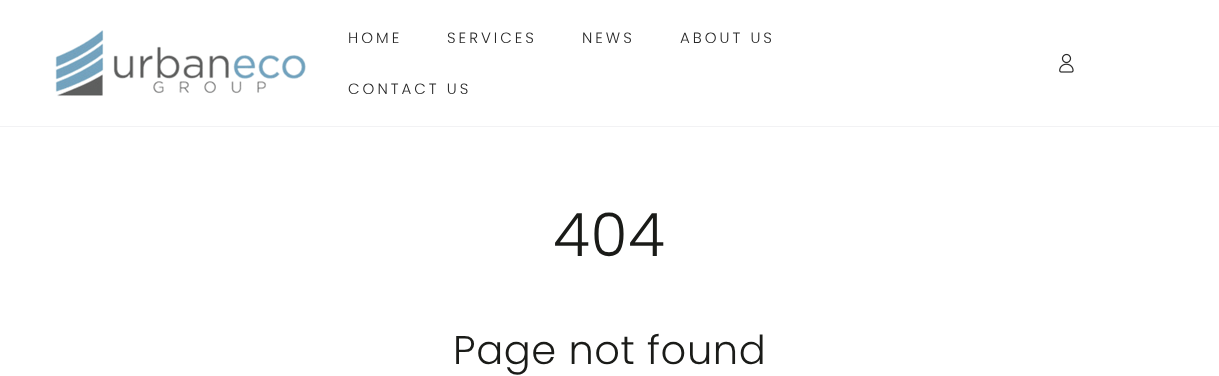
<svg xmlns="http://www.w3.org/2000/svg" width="1219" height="376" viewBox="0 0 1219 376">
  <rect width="100%" height="100%" fill="#fff"/>
  <path d="M0 126h1219v1H0z" fill="#f2f2f4"/>
  <image x="55" y="30" width="251" height="67" href="img/1.png"/>
  <image x="1059" y="53" width="15" height="20" href="img/2.png"/>
  <g font-family="Poppins" font-size="15" font-weight="300" letter-spacing="3" fill="#282828">
    <text x="348" y="43">HOME</text>
    <text x="447" y="43">SERVICES</text>
    <text x="582" y="43">NEWS</text>
    <text x="680" y="43">ABOUT US</text>
    <text x="348" y="94">CONTACT US</text>
  </g>
  <text x="553" y="256" font-family="Poppins" font-size="60" font-weight="300" letter-spacing="0.6" fill="#1a1b18">404</text>
  <text x="453" y="364" font-family="Poppins" font-size="40" font-weight="300" letter-spacing="0.6" fill="#1a1b18">Page not found</text>
</svg>
